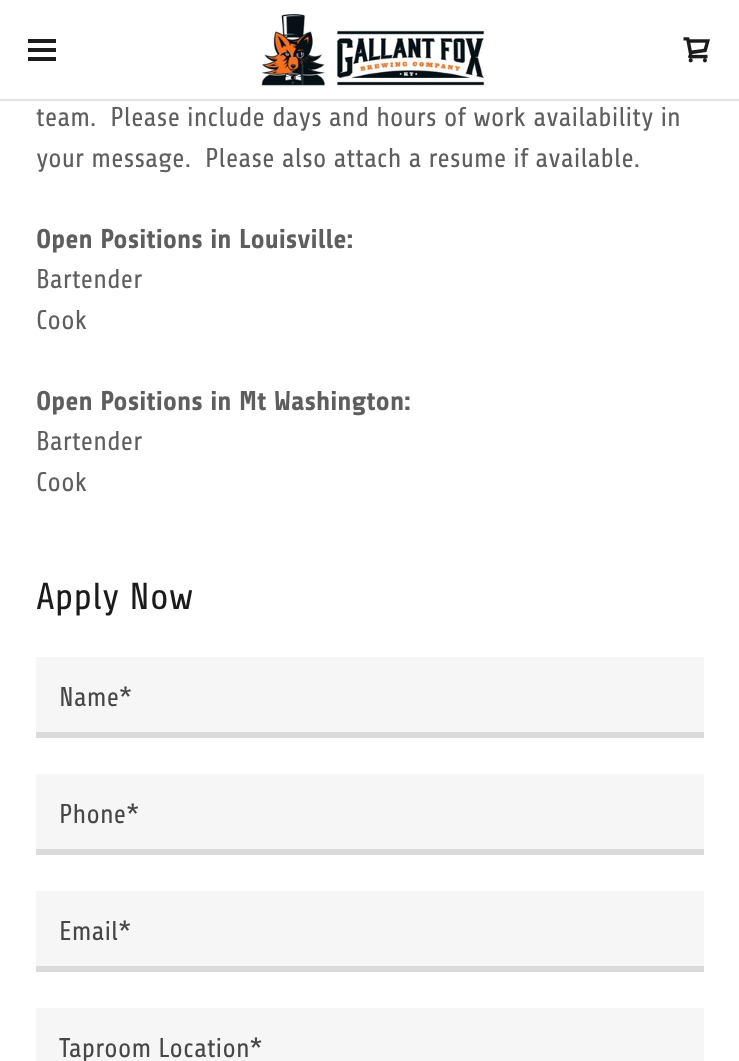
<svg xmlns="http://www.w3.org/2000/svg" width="739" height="1061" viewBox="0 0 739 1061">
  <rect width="100%" height="100%" fill="#fff"/>
  <path d="M28 39h28v4H28z" fill="#1b1b1b"/>
  <path d="M28 48h28v4H28z" fill="#1b1b1b"/>
  <path d="M28 57h28v4H28z" fill="#1b1b1b"/>
  <image x="261" y="13" width="224" height="74" href="img/1.png"/>
  <image x="683" y="37" width="27" height="26" href="img/2.png"/>
  <path d="M0 99h739v2H0z" fill="#e2e2e2"/>
  <path d="M36 657h668v75H36z" fill="#f6f6f6"/>
  <path d="M36 732h668v6H36z" fill="#dadada"/>
  <path d="M36 774h668v75H36z" fill="#f6f6f6"/>
  <path d="M36 849h668v6H36z" fill="#dadada"/>
  <path d="M36 891h668v75H36z" fill="#f6f6f6"/>
  <path d="M36 966h668v6H36z" fill="#dadada"/>
  <path d="M36 1008h668v53H36z" fill="#f6f6f6"/>
  <g font-family="Share" font-size="27" fill="#5e5e5e">
    <text x="36" y="126" xml:space="preserve">team.  Please include days and hours of work availability in</text>
    <text x="36" y="167" xml:space="preserve">your message.  Please also attach a resume if available.</text>
  </g>
  <text x="36" y="248" font-family="Share" font-size="27" font-weight="bold" fill="#5e5e5e">Open Positions in Louisville:</text>
  <g font-family="Share" font-size="27" fill="#5e5e5e">
    <text x="36" y="288">Bartender</text>
    <text x="36" y="329">Cook</text>
  </g>
  <text x="36" y="410" font-family="Share" font-size="27" font-weight="bold" fill="#5e5e5e">Open Positions in Mt Washington:</text>
  <g font-family="Share" font-size="27" fill="#5e5e5e">
    <text x="36" y="450">Bartender</text>
    <text x="36" y="491">Cook</text>
  </g>
  <text x="36" y="609" font-family="Share" font-size="37.5" fill="#1b1b1b">Apply Now</text>
  <g font-family="Share" font-size="27" fill="#474747">
    <text x="59" y="706">Name*</text>
    <text x="59" y="823">Phone*</text>
    <text x="59" y="940">Email*</text>
    <text x="59" y="1057">Taproom Location*</text>
  </g>
</svg>
